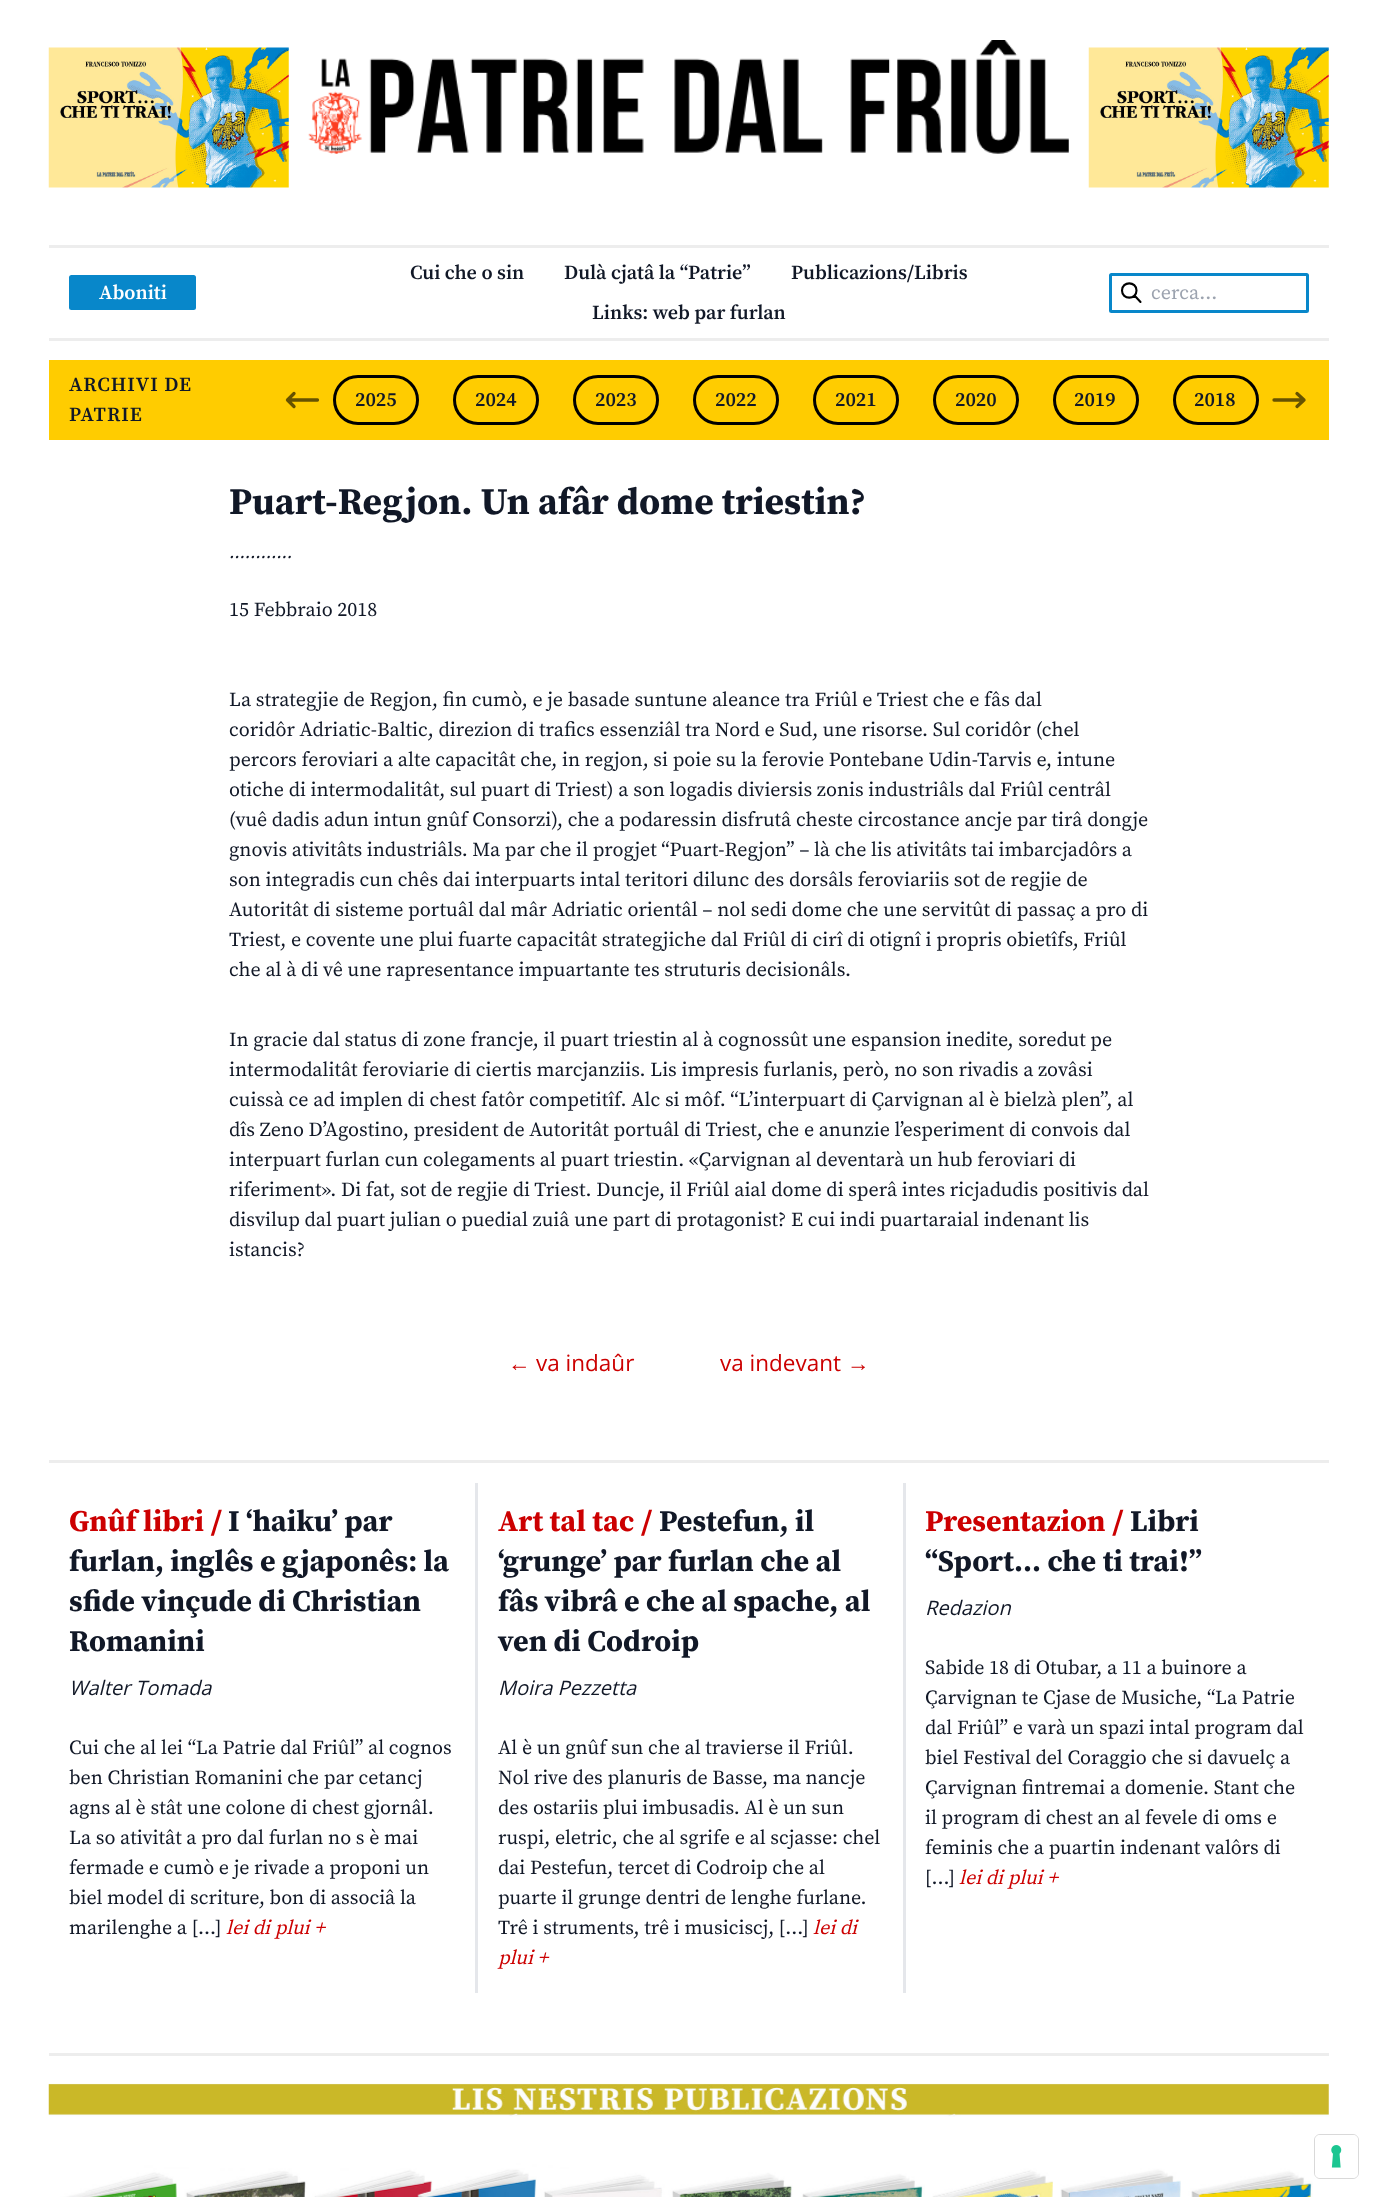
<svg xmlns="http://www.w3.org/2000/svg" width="1377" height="2197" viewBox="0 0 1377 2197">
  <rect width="100%" height="100%" fill="#fff"/>
  <image x="48" y="47" width="241" height="141" href="img/1.png"/>
  <image x="308" y="40" width="761" height="114" href="img/2.png"/>
  <image x="1088" y="47" width="241" height="141" href="img/1.png"/>
  <path d="M49 245h1280v3H49z" fill="#ededed"/>
  <path d="M49 338h1280v3H49z" fill="#ededed"/>
  <rect x="69" y="275" width="127" height="35" rx="2.5" fill="#0887ca"/>
  <rect x="1110.5" y="274.5" width="197" height="37" rx="1" fill="none" stroke="#0887ca" stroke-width="3"/>
  <path d="M1140.5 302L1134.5 295.5M1136.5 290.5C1136.5 300 1122 300 1122 290.5C1122 281 1136.5 281 1136.5 290.5Z" fill="none" stroke="#000" stroke-width="2.1" stroke-linecap="round" stroke-linejoin="round"/>
  <path d="M49 360h1280v80H49z" fill="#fc0"/>
  <path d="M294 406.5L287.5 400M287.5 400L294 393.5M287.5 400H317.5" fill="none" stroke="#665200" stroke-width="3.3" stroke-linecap="round" stroke-linejoin="round"/>
  <path d="M1297 393.5L1304 400M1304 400L1297 406.5M1304 400H1274" fill="none" stroke="#665200" stroke-width="3.3" stroke-linecap="round" stroke-linejoin="round"/>
  <rect x="334.5" y="376.5" width="83" height="47" rx="23.5" fill="none" stroke="#000" stroke-width="3"/>
  <rect x="454.5" y="376.5" width="83" height="47" rx="23.5" fill="none" stroke="#000" stroke-width="3"/>
  <rect x="574.5" y="376.5" width="83" height="47" rx="23.5" fill="none" stroke="#000" stroke-width="3"/>
  <rect x="694.5" y="376.5" width="83" height="47" rx="23.5" fill="none" stroke="#000" stroke-width="3"/>
  <rect x="814.5" y="376.5" width="83" height="47" rx="23.5" fill="none" stroke="#000" stroke-width="3"/>
  <rect x="934.5" y="376.5" width="83" height="47" rx="23.5" fill="none" stroke="#000" stroke-width="3"/>
  <rect x="1054.5" y="376.5" width="83" height="47" rx="23.5" fill="none" stroke="#000" stroke-width="3"/>
  <rect x="1174.5" y="376.5" width="83" height="47" rx="23.5" fill="none" stroke="#000" stroke-width="3"/>
  <path d="M49 1460h1280v3H49z" fill="#ededed"/>
  <path d="M475 1483h3v510H475z" fill="#e5e7eb"/>
  <path d="M903 1483h3v510H903z" fill="#e5e7eb"/>
  <path d="M49 2053h1280v3H49z" fill="#ededed"/>
  <image x="48" y="2083" width="1281" height="114" href="img/3.png"/>
  <rect x="1314.5" y="2134.5" width="44" height="44" rx="5.5" fill="none" stroke="#d9d9d9"/>
  <rect x="1315" y="2135" width="43" height="43" rx="5" fill="#fff"/>
  <image x="1331" y="2145" width="11" height="23" href="img/4.png"/>
  <text x="99" y="299" font-family="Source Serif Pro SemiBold" font-size="20" font-weight="600" fill="#fff">Aboniti</text>
  <g font-family="Source Serif Pro SemiBold" font-size="20" font-weight="600" fill="#111827">
    <text x="410" y="279">Cui che o sin</text>
    <text x="564" y="279">Dulà cjatâ la “Patrie”</text>
    <text x="791" y="279">Publicazions/Libris</text>
    <text x="592" y="319">Links: web par furlan</text>
  </g>
  <text x="1151" y="299" font-family="Source Serif Pro" font-size="20" fill="#9ca3af">cerca...</text>
  <g font-family="Source Serif Pro SemiBold" font-size="20" font-weight="600" letter-spacing="1" fill="#111827">
    <text x="69" y="391">ARCHIVI DE</text>
    <text x="69" y="421">PATRIE</text>
  </g>
  <g font-family="Source Serif Pro SemiBold" font-size="20" font-weight="600" fill="#111827">
    <text x="355" y="406">2025</text>
    <text x="475" y="406">2024</text>
    <text x="595" y="406">2023</text>
    <text x="715" y="406">2022</text>
    <text x="835" y="406">2021</text>
    <text x="955" y="406">2020</text>
    <text x="1074" y="406">2019</text>
    <text x="1194" y="406">2018</text>
  </g>
  <text x="229" y="514" font-family="Source Serif Pro" font-size="37.5" font-weight="bold" fill="#111827">Puart-Regjon. Un afâr dome triestin?</text>
  <text x="229" y="558" font-family="Open Sans" font-size="20" font-style="italic" fill="#111827">............</text>
  <g font-family="Source Serif Pro" font-size="20" fill="#111827">
    <text x="229" y="616">15 Febbraio 2018</text>
    <text x="229" y="706">La strategjie de Regjon, fin cumò, e je basade suntune aleance tra Friûl e Triest che e fâs dal</text>
    <text x="229" y="736">coridôr Adriatic-Baltic, direzion di trafics essenziâl tra Nord e Sud, une risorse. Sul coridôr (chel</text>
    <text x="229" y="766">percors feroviari a alte capacitât che, in regjon, si poie su la ferovie Pontebane Udin-Tarvis e, intune</text>
    <text x="229" y="796">otiche di intermodalitât, sul puart di Triest) a son logadis diviersis zonis industriâls dal Friûl centrâl</text>
    <text x="229" y="826">(vuê dadis adun intun gnûf Consorzi), che a podaressin disfrutâ cheste circostance ancje par tirâ dongje</text>
    <text x="229" y="856">gnovis ativitâts industriâls. Ma par che il progjet “Puart-Regjon” – là che lis ativitâts tai imbarcjadôrs a</text>
    <text x="229" y="886">son integradis cun chês dai interpuarts intal teritori dilunc des dorsâls feroviariis sot de regjie de</text>
    <text x="229" y="916">Autoritât di sisteme portuâl dal mâr Adriatic orientâl – nol sedi dome che une servitût di passaç a pro di</text>
    <text x="229" y="946">Triest, e covente une plui fuarte capacitât strategjiche dal Friûl di cirî di otignî i propris obietîfs, Friûl</text>
    <text x="229" y="976">che al à di vê une rapresentance impuartante tes struturis decisionâls.</text>
    <text x="229" y="1046">In gracie dal status di zone francje, il puart triestin al à cognossût une espansion inedite, soredut pe</text>
    <text x="229" y="1076">intermodalitât feroviarie di ciertis marcjanziis. Lis impresis furlanis, però, no son rivadis a zovâsi</text>
    <text x="229" y="1106">cuissà ce ad implen di chest fatôr competitîf. Alc si môf. “L’interpuart di Çarvignan al è bielzà plen”, al</text>
    <text x="229" y="1136">dîs Zeno D’Agostino, president de Autoritât portuâl di Triest, che e anunzie l’esperiment di convois dal</text>
    <text x="229" y="1166">interpuart furlan cun colegaments al puart triestin. «Çarvignan al deventarà un hub feroviari di</text>
    <text x="229" y="1196">riferiment». Di fat, sot de regjie di Triest. Duncje, il Friûl aial dome di sperâ intes ricjadudis positivis dal</text>
    <text x="229" y="1226">disvilup dal puart julian o puedial zuiâ une part di protagonist? E cui indi puartaraial indenant lis</text>
    <text x="229" y="1256">istancis?</text>
  </g>
  <text x="508" y="1371" font-family="Liberation Sans" font-size="22.5" fill="#cc0001">←</text>
  <g font-family="Open Sans" font-size="22.5" fill="#cc0001">
    <text x="536" y="1371">va indaûr</text>
    <text x="720" y="1371">va indevant</text>
  </g>
  <text x="847" y="1371" font-family="Liberation Sans" font-size="22.5" fill="#cc0001">→</text>
  <text x="69" y="1531" font-family="Source Serif Pro" font-size="30" font-weight="bold" fill="#cc0001">Gnûf libri /</text>
  <g font-family="Source Serif Pro" font-size="30" font-weight="bold" fill="#111827">
    <text x="228" y="1531">I ‘haiku’ par</text>
    <text x="69" y="1571">furlan, inglês e gjaponês: la</text>
    <text x="69" y="1611">sfide vinçude di Christian</text>
    <text x="69" y="1651">Romanini</text>
  </g>
  <text x="69" y="1695" font-family="Open Sans" font-size="20" font-style="italic" fill="#111827">Walter Tomada</text>
  <g font-family="Source Serif Pro" font-size="20" fill="#111827">
    <text x="69" y="1754">Cui che al lei “La Patrie dal Friûl” al cognos</text>
    <text x="69" y="1784">ben Christian Romanini che par cetancj</text>
    <text x="69" y="1814">agns al è stât une colone di chest gjornâl.</text>
    <text x="69" y="1844">La so ativitât a pro dal furlan no s è mai</text>
    <text x="69" y="1874">fermade e cumò e je rivade a proponi un</text>
    <text x="69" y="1904">biel model di scriture, bon di associâ la</text>
    <text x="69" y="1934">marilenghe a […]</text>
  </g>
  <text x="226" y="1934" font-family="Source Serif Pro" font-size="20" font-style="italic" fill="#cc0001">lei di plui +</text>
  <text x="498" y="1531" font-family="Source Serif Pro" font-size="30" font-weight="bold" fill="#cc0001">Art tal tac /</text>
  <g font-family="Source Serif Pro" font-size="30" font-weight="bold" fill="#111827">
    <text x="659" y="1531">Pestefun, il</text>
    <text x="498" y="1571">‘grunge’ par furlan che al</text>
    <text x="498" y="1611">fâs vibrâ e che al spache, al</text>
    <text x="498" y="1651">ven di Codroip</text>
  </g>
  <text x="498" y="1695" font-family="Open Sans" font-size="20" font-style="italic" fill="#111827">Moira Pezzetta</text>
  <g font-family="Source Serif Pro" font-size="20" fill="#111827">
    <text x="498" y="1754">Al è un gnûf sun che al travierse il Friûl.</text>
    <text x="498" y="1784">Nol rive des planuris de Basse, ma nancje</text>
    <text x="498" y="1814">des ostariis plui imbusadis. Al è un sun</text>
    <text x="498" y="1844">ruspi, eletric, che al sgrife e al scjasse: chel</text>
    <text x="498" y="1874">dai Pestefun, tercet di Codroip che al</text>
    <text x="498" y="1904">puarte il grunge dentri de lenghe furlane.</text>
    <text x="498" y="1934">Trê i struments, trê i musiciscj, […]</text>
  </g>
  <g font-family="Source Serif Pro" font-size="20" font-style="italic" fill="#cc0001">
    <text x="813" y="1934">lei di</text>
    <text x="498" y="1964">plui +</text>
  </g>
  <text x="925" y="1531" font-family="Source Serif Pro" font-size="30" font-weight="bold" fill="#cc0001">Presentazion /</text>
  <g font-family="Source Serif Pro" font-size="30" font-weight="bold" fill="#111827">
    <text x="1130" y="1531">Libri</text>
    <text x="925" y="1571">“Sport… che ti trai!”</text>
  </g>
  <text x="925" y="1615" font-family="Open Sans" font-size="20" font-style="italic" fill="#111827">Redazion</text>
  <g font-family="Source Serif Pro" font-size="20" fill="#111827">
    <text x="925" y="1674">Sabide 18 di Otubar, a 11 a buinore a</text>
    <text x="925" y="1704">Çarvignan te Cjase de Musiche, “La Patrie</text>
    <text x="925" y="1734">dal Friûl” e varà un spazi intal program dal</text>
    <text x="925" y="1764">biel Festival del Coraggio che si davuelç a</text>
    <text x="925" y="1794">Çarvignan fintremai a domenie. Stant che</text>
    <text x="925" y="1824">il program di chest an al fevele di oms e</text>
    <text x="925" y="1854">feminis che a puartin indenant valôrs di</text>
    <text x="925" y="1884">[…]</text>
  </g>
  <text x="959" y="1884" font-family="Source Serif Pro" font-size="20" font-style="italic" fill="#cc0001">lei di plui +</text>
</svg>
